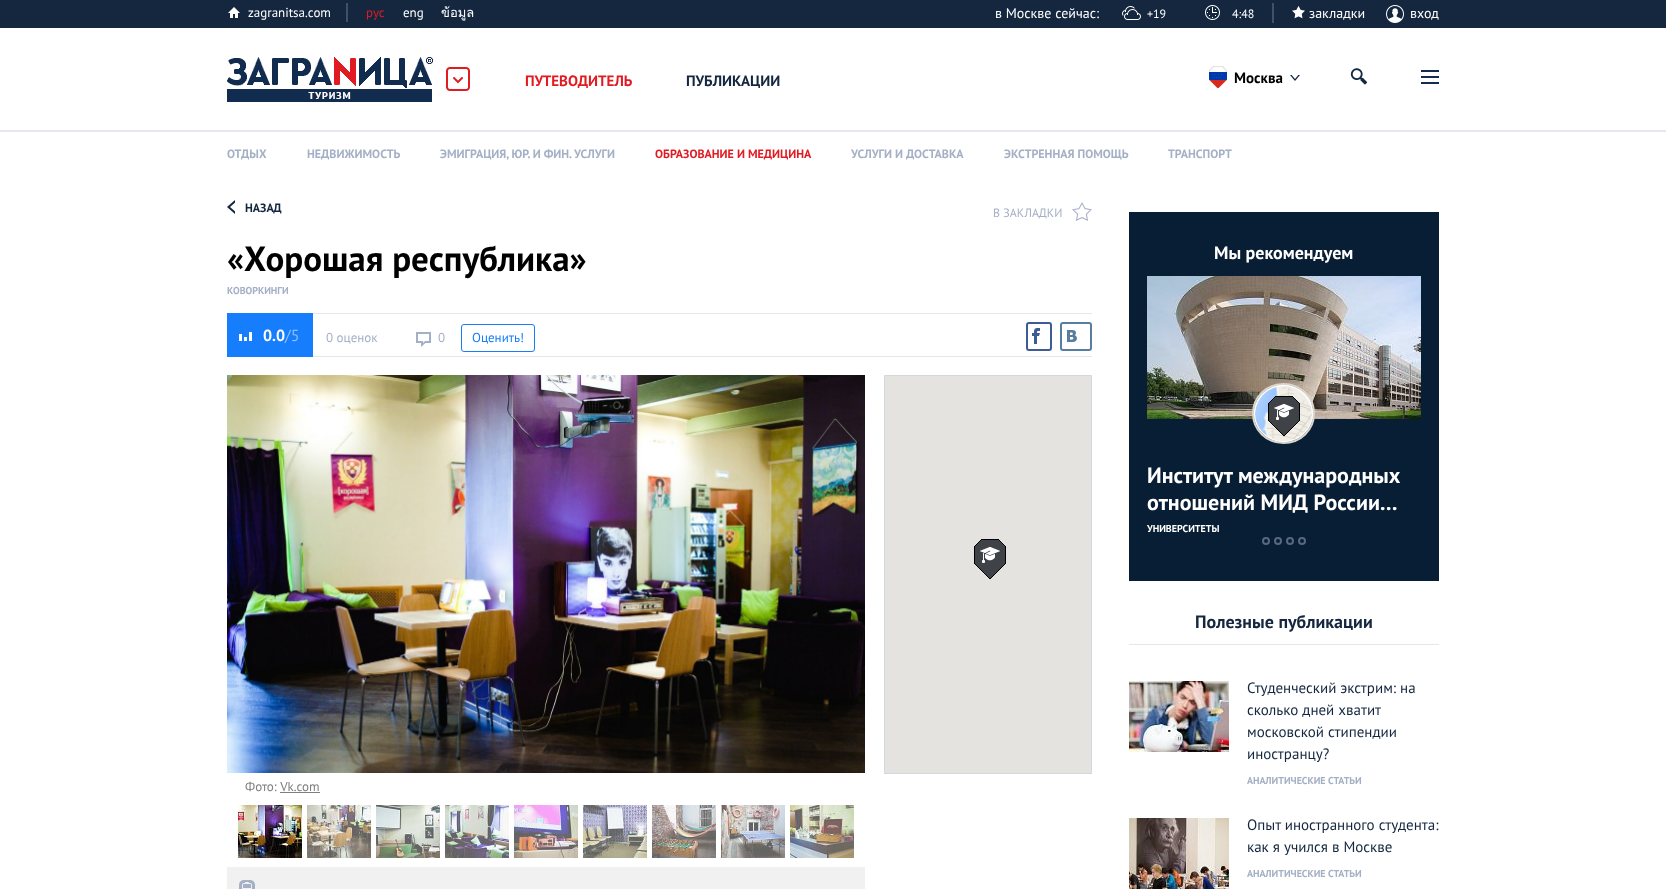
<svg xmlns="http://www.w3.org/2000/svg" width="1666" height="889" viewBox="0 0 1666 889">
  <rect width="100%" height="100%" fill="#fff"/>
  <path d="M0 0h1666v28H0z" fill="#14273f"/>
  <image x="228" y="7" width="12" height="11" href="img/1.png"/>
  <path d="M346 3h2v19H346z" fill="#3f5067"/>
  <image x="1122" y="6" width="19" height="14" href="img/2.png"/>
  <path d="M1272 3h2v20H1272z" fill="#3f5067"/>
  <image x="1205" y="5" width="15" height="15" href="img/3.png"/>
  <image x="1292" y="6" width="13" height="13" href="img/4.png"/>
  <image x="1386" y="5" width="18" height="18" href="img/5.png"/>
  <path d="M0 130h1666v2H0z" fill="#e4e7ed"/>
  <image x="227" y="57" width="206" height="45" href="img/6.png"/>
  <image x="446" y="67" width="24" height="24" href="img/7.png"/>
  <image x="1350" y="68" width="18" height="17" href="img/8.png"/>
  <path d="M1421 70h18v2H1421z" fill="#122c50"/>
  <path d="M1421 76h18v2H1421z" fill="#122c50"/>
  <path d="M1421 82h18v2H1421z" fill="#122c50"/>
  <image x="1209" y="66" width="18" height="22" href="img/9.png"/>
  <path d="M1290 75H1300L1295 81Z" fill="#14273f"/>
  <path d="M1290 73H1300L1295 79Z" fill="#fff"/>
  <path d="M235 200V214L227 207Z" fill="#14273f"/>
  <path d="M238 200V214L230 207Z" fill="#fff"/>
  <image x="1072" y="202" width="20" height="19" href="img/10.png"/>
  <path d="M313 313h779v1H313z" fill="#e4e7ed"/>
  <path d="M313 356h779v1H313z" fill="#e4e7ed"/>
  <path d="M227 313h86v44H227z" fill="#167dfd"/>
  <image x="239" y="332" width="13" height="9" href="img/11.png"/>
  <image x="416" y="332" width="15" height="15" href="img/12.png"/>
  <rect x="461.5" y="324.5" width="73" height="27" rx="2.5" fill="none" stroke="#167dfd"/>
  <rect x="1027" y="323" width="24" height="27" rx="2" fill="none" stroke="#3d5b95" stroke-width="2"/>
  <image x="1032" y="328" width="8" height="16" href="img/13.png"/>
  <rect x="1061" y="323" width="30" height="27" rx="2" fill="none" stroke="#587e9f" stroke-width="2"/>
  <image x="1067" y="330" width="10" height="12" href="img/14.png"/>
  <path d="M884.5 375.5h207v398H884.5z" fill="none" stroke="#d3d7de"/>
  <path d="M885 376h206v397H885z" fill="#e5e3df"/>
  <image x="974" y="539" width="32" height="40" href="img/15.png"/>
  <image x="227" y="375" width="638" height="398" href="img/16.png"/>
  <path d="M280 792h40v1H280z" fill="#7f7f7f"/>
  <image x="238" y="805" width="64" height="53" href="img/17.png"/>
  <path d="M307 805h64v53H307z" fill="#f0f0f0"/>
  <image x="307" y="805" width="64" height="53" href="img/18.png"/>
  <path d="M376 805h64v53H376z" fill="#f0f0f0"/>
  <image x="376" y="805" width="64" height="53" href="img/19.png"/>
  <path d="M445 805h64v53H445z" fill="#f0f0f0"/>
  <image x="445" y="805" width="64" height="53" href="img/20.png"/>
  <path d="M514 805h64v53H514z" fill="#f0f0f0"/>
  <image x="514" y="805" width="64" height="53" href="img/21.png"/>
  <path d="M583 805h64v53H583z" fill="#f0f0f0"/>
  <image x="583" y="805" width="64" height="53" href="img/22.png"/>
  <path d="M652 805h64v53H652z" fill="#f0f0f0"/>
  <image x="652" y="805" width="64" height="53" href="img/23.png"/>
  <path d="M721 805h64v53H721z" fill="#f0f0f0"/>
  <image x="721" y="805" width="64" height="53" href="img/24.png"/>
  <path d="M790 805h64v53H790z" fill="#f0f0f0"/>
  <image x="790" y="805" width="64" height="53" href="img/25.png"/>
  <path d="M227 867h638v22H227z" fill="#f1f1f1"/>
  <image x="239" y="880" width="16" height="9" href="img/26.png"/>
  <path d="M1129 212h310v369H1129z" fill="#081e35"/>
  <image x="1147" y="276" width="274" height="143" href="img/27.png"/>
  <path d="M1283.5 384C1300.5 384 1314 397 1314 413.5C1314 430 1300.5 443 1283.5 443C1266.5 443 1253 430 1253 413.5C1253 397 1266.5 384 1283.5 384Z" fill="none" stroke="#dbd5cc" stroke-width="2"/>
  <ellipse cx="1283.5" cy="413.5" rx="29.5" ry="28.5" fill="#fff"/>
  <path d="M1283.5 385.5C1299.5 385.5 1312.5 398 1312.5 413.5C1312.5 429 1299.5 441.5 1283.5 441.5C1267.5 441.5 1254.5 429 1254.5 413.5C1254.5 398 1267.5 385.5 1283.5 385.5Z" fill="none" stroke="#fff"/>
  <image x="1255" y="386" width="57" height="55" href="img/28.png"/>
  <image x="1268" y="396" width="32" height="40" href="img/29.png"/>
  <circle cx="1266" cy="541" r="3" fill="none" stroke="#58697e" stroke-width="2"/>
  <circle cx="1278" cy="541" r="3" fill="none" stroke="#58697e" stroke-width="2"/>
  <circle cx="1290" cy="541" r="3" fill="none" stroke="#58697e" stroke-width="2"/>
  <circle cx="1302" cy="541" r="3" fill="none" stroke="#58697e" stroke-width="2"/>
  <path d="M1129 644h310v1H1129z" fill="#e4e7ed"/>
  <image x="1129" y="681" width="100" height="71" href="img/30.png"/>
  <image x="1129" y="818" width="100" height="71" href="img/31.png"/>
  <text x="248" y="17" font-family="PT Sans" font-size="13" fill="#fff">zagranitsa.com</text>
  <text x="366" y="17" font-family="PT Sans" font-size="13" fill="#e11b22">рус</text>
  <text x="403" y="17" font-family="PT Sans" font-size="13" fill="#fff">eng</text>
  <text x="441" y="17" font-family="Loma" font-size="13" fill="#fff">ข้อมูล</text>
  <text x="995" y="18" font-family="PT Sans" font-size="14" fill="#fff">в Москве сейчас:</text>
  <g font-family="PT Sans" font-size="12" fill="#fff">
    <text x="1147" y="18">+19</text>
    <text x="1232" y="18">4:48</text>
  </g>
  <g font-family="PT Sans" font-size="14" fill="#fff">
    <text x="1309" y="18">закладки</text>
    <text x="1410" y="18">вход</text>
  </g>
  <text x="525" y="86" font-family="PT Sans" font-size="15" font-weight="bold" fill="#e11b22">ПУТЕВОДИТЕЛЬ</text>
  <text x="686" y="86" font-family="PT Sans" font-size="15" font-weight="bold" fill="#14273f">ПУБЛИКАЦИИ</text>
  <text x="1234" y="83" font-family="PT Sans" font-size="15" font-weight="bold" fill="#000">Москва</text>
  <g font-family="PT Sans" font-size="12" font-weight="bold" fill="#a4b0c5">
    <text x="227" y="158">ОТДЫХ</text>
    <text x="307" y="158">НЕДВИЖИМОСТЬ</text>
    <text x="440" y="158">ЭМИГРАЦИЯ, ЮР. И ФИН. УСЛУГИ</text>
  </g>
  <text x="655" y="158" font-family="PT Sans" font-size="12" font-weight="bold" fill="#e11b22">ОБРАЗОВАНИЕ И МЕДИЦИНА</text>
  <g font-family="PT Sans" font-size="12" font-weight="bold" fill="#a4b0c5">
    <text x="851" y="158">УСЛУГИ И ДОСТАВКА</text>
    <text x="1004" y="158">ЭКСТРЕННАЯ ПОМОЩЬ</text>
    <text x="1168" y="158">ТРАНСПОРТ</text>
  </g>
  <text x="245" y="212" font-family="PT Sans" font-size="12" font-weight="bold" fill="#14273f">НАЗАД</text>
  <text x="993" y="217" font-family="PT Sans" font-size="12" fill="#a4b0c5">В ЗАКЛАДКИ</text>
  <text x="227" y="271" font-family="PT Sans" font-size="35" font-weight="bold" fill="#000">«Хорошая республика»</text>
  <text x="227" y="294" font-family="PT Sans" font-size="10" font-weight="bold" fill="#a4b0c5">КОВОРКИНГИ</text>
  <text x="263" y="341" font-family="PT Sans" font-size="16" font-weight="bold" fill="#fff">0.0</text>
  <text x="285" y="341" font-family="PT Sans" font-size="16" fill="#8bbefe">/5</text>
  <g font-family="PT Sans" font-size="13" fill="#a4b0c5">
    <text x="326" y="342">0 оценок</text>
    <text x="438" y="342">0</text>
  </g>
  <text x="472" y="342" font-family="PT Sans" font-size="13" fill="#167dfd">Оценить!</text>
  <text x="245" y="791" font-family="PT Sans" font-size="13" fill="#7f7f7f">Фото: Vk.com</text>
  <text x="1214" y="259" font-family="PT Sans" font-size="18" font-weight="bold" fill="#fff">Мы рекомендуем</text>
  <g font-family="PT Sans" font-size="22" font-weight="bold" fill="#fff">
    <text x="1147" y="483">Институт международных</text>
    <text x="1147" y="510">отношений МИД России…</text>
  </g>
  <text x="1147" y="532" font-family="PT Sans" font-size="10" font-weight="bold" fill="#fff">УНИВЕРСИТЕТЫ</text>
  <text x="1195" y="628" font-family="PT Sans" font-size="18" font-weight="bold" fill="#14273f">Полезные публикации</text>
  <g font-family="PT Sans" font-size="15" fill="#14273f">
    <text x="1247" y="693">Студенческий экстрим: на</text>
    <text x="1247" y="715">сколько дней хватит</text>
    <text x="1247" y="737">московской стипендии</text>
    <text x="1247" y="759">иностранцу?</text>
  </g>
  <text x="1247" y="784" font-family="PT Sans" font-size="10" font-weight="bold" fill="#a4b0c5">АНАЛИТИЧЕСКИЕ СТАТЬИ</text>
  <g font-family="PT Sans" font-size="15" fill="#14273f">
    <text x="1247" y="830">Опыт иностранного студента:</text>
    <text x="1247" y="852">как я учился в Москве</text>
  </g>
  <text x="1247" y="877" font-family="PT Sans" font-size="10" font-weight="bold" fill="#a4b0c5">АНАЛИТИЧЕСКИЕ СТАТЬИ</text>
</svg>
